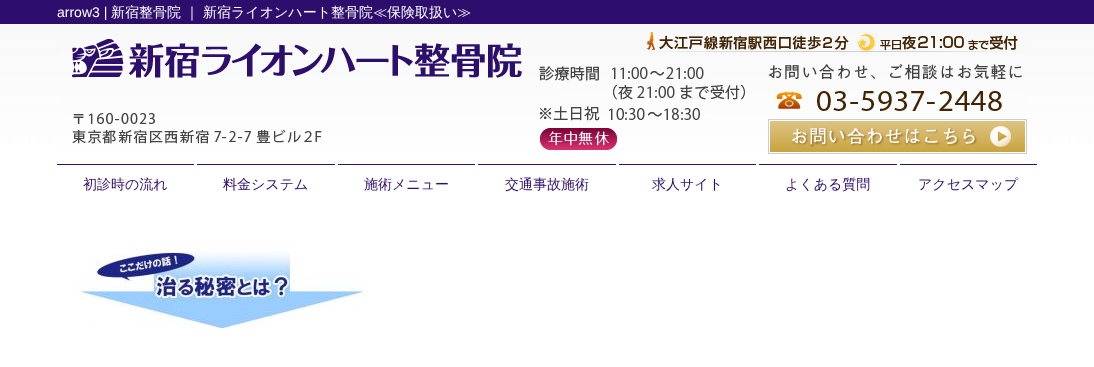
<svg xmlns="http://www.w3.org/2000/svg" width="1094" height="367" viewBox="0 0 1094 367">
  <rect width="100%" height="100%" fill="#fff"/>
  <path d="M0 0h1094v24H0z" fill="#2e0e6d"/>
  <image x="0" y="24" width="1094" height="120" href="img/1.png"/>
  <image x="59" y="32" width="971" height="119" href="img/2.png"/>
  <image x="72" y="39" width="450" height="39" href="img/3.png"/>
  <image x="768" y="119" width="259" height="35" href="img/4.png"/>
  <path d="M57 164h137v1H57z" fill="#2e0e6d"/>
  <path d="M197 164h138v1H197z" fill="#2e0e6d"/>
  <path d="M338 164h137v1H338z" fill="#2e0e6d"/>
  <path d="M478 164h138v1H478z" fill="#2e0e6d"/>
  <path d="M619 164h137v1H619z" fill="#2e0e6d"/>
  <path d="M759 164h138v1H759z" fill="#2e0e6d"/>
  <path d="M900 164h137v1H900z" fill="#2e0e6d"/>
  <image x="75" y="245" width="293" height="83" href="img/5.png"/>
  <text x="57" y="17" font-family="Liberation Sans" font-size="14" fill="#fff">arrow3 |</text>
  <g font-family="WenQuanYi Zen Hei" font-size="14" font-weight="500" fill="#fff">
    <text x="111" y="17">新宿整骨院</text>
    <text x="185" y="17">｜</text>
    <text x="203" y="17">新宿ライオンハート整骨院≪保険取扱い≫</text>
  </g>
  <g font-family="WenQuanYi Zen Hei" font-size="14" font-weight="500" fill="#2e0e6d">
    <text x="83" y="189">初診時の流れ</text>
    <text x="223" y="189">料金システム</text>
    <text x="364" y="189">施術メニュー</text>
    <text x="505" y="189">交通事故施術</text>
    <text x="652" y="189">求人サイト</text>
    <text x="785" y="189">よくある質問</text>
    <text x="918" y="189">アクセスマップ</text>
  </g>
</svg>
